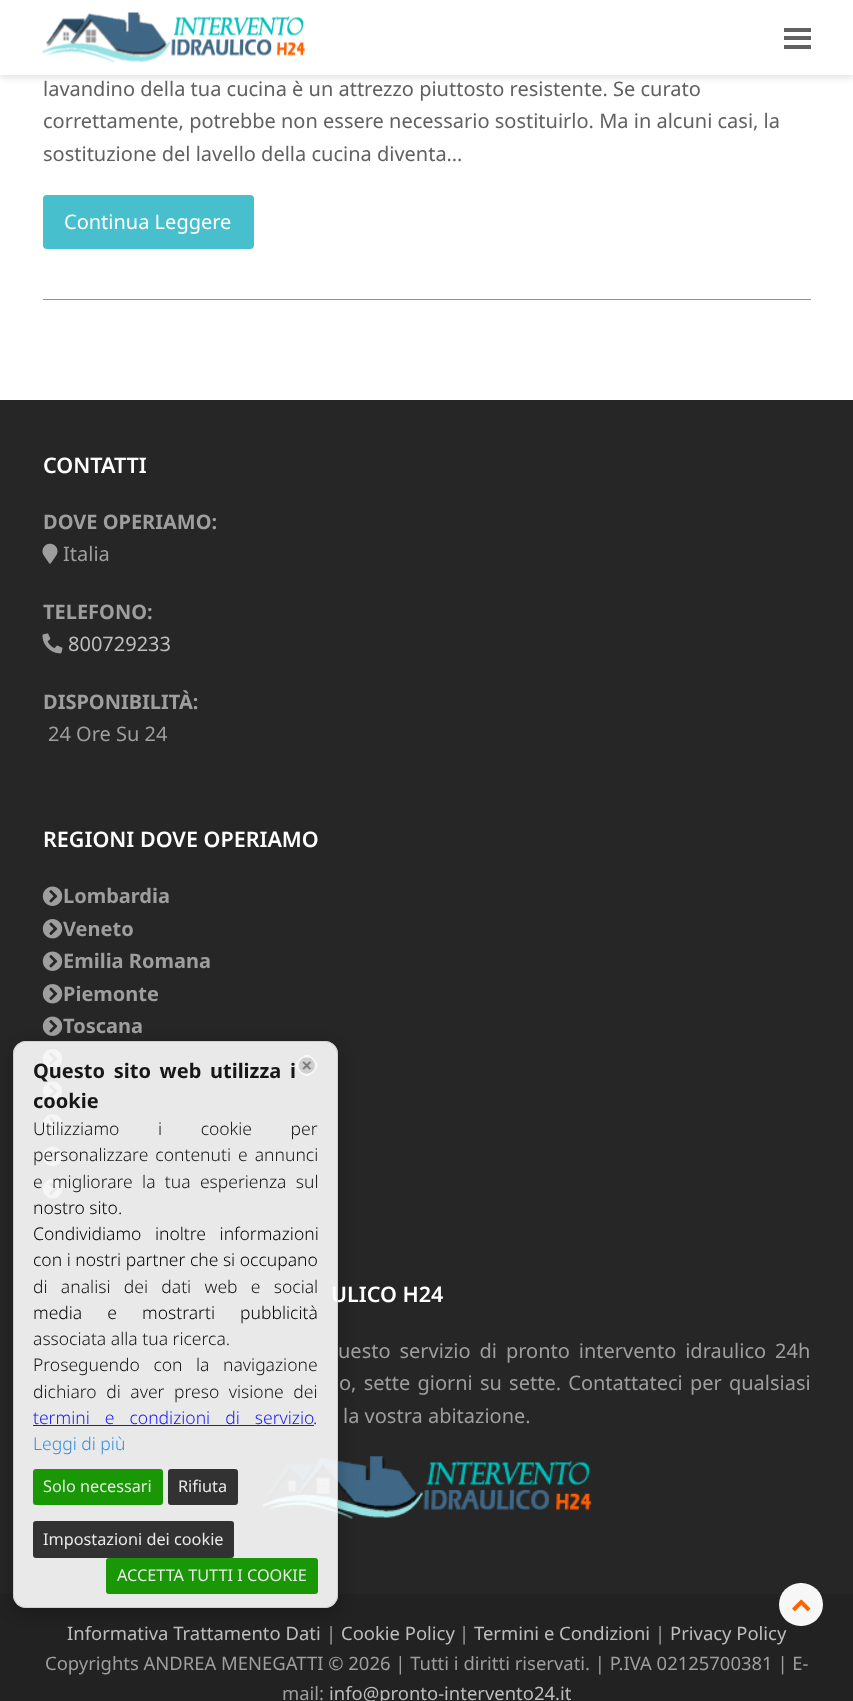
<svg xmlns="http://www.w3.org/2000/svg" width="853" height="1701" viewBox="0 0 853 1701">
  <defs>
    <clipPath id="clip1"><path d="M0 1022H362V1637H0ZM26 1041H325C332 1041 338 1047 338 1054V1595C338 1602 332 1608 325 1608H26C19 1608 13 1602 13 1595V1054C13 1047 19 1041 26 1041Z" clip-rule="evenodd"/></clipPath>
  </defs>
  <rect width="100%" height="100%" fill="#fff"/>
  <path d="M0 3h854v75H0z" fill="#0000001a" filter="blur(3px)"/>
  <path d="M0 0h853v75H0z" fill="#fff"/>
  <image x="42" y="12" width="263" height="51" href="img/1.png"/>
  <path d="M784 36h27v4H784z" fill="#616161"/>
  <path d="M784 28h27v4H784z" fill="#616161"/>
  <path d="M784 45h27v4H784z" fill="#616161"/>
  <rect x="43" y="195" width="211" height="54" rx="4" fill="#48bfcc"/>
  <path d="M43 299h768v1H43z" fill="#45b1c6"/>
  <path d="M0 400h853v1194H0z" fill="#262626"/>
  <image x="42" y="543" width="16" height="21" href="img/2.png"/>
  <image x="42" y="633" width="21" height="21" href="img/3.png"/>
  <image x="42" y="886" width="21" height="20" href="img/4.png"/>
  <image x="42" y="919" width="21" height="20" href="img/5.png"/>
  <image x="42" y="951" width="21" height="20" href="img/4.png"/>
  <image x="42" y="984" width="21" height="20" href="img/5.png"/>
  <image x="42" y="1016" width="21" height="20" href="img/4.png"/>
  <image x="42" y="1049" width="21" height="20" href="img/5.png"/>
  <image x="42" y="1081" width="21" height="20" href="img/4.png"/>
  <image x="42" y="1114" width="21" height="20" href="img/5.png"/>
  <image x="42" y="1146" width="21" height="20" href="img/4.png"/>
  <image x="42" y="1179" width="21" height="20" href="img/5.png"/>
  <image x="262" y="1456" width="330" height="63" href="img/6.png"/>
  <path d="M0 1594h853v107H0z" fill="#222"/>
  <g clip-path="url(#clip1)">
    <rect x="13" y="1046" width="325" height="567" rx="13" fill="#0000003b" filter="blur(7.5px)"/>
  </g>
  <rect x="779" y="1583" width="44" height="43" rx="21.5" fill="#f7f7f7"/>
  <image x="792" y="1599" width="19" height="13" href="img/8.png"/>
  <g font-family="Noto Sans" font-size="20" fill="#616161">
    <text x="43" y="96">lavandino della tua cucina è un attrezzo piuttosto resistente. Se curato</text>
    <text x="43" y="128">correttamente, potrebbe non essere necessario sostituirlo. Ma in alcuni casi, la</text>
    <text x="43" y="161">sostituzione del lavello della cucina diventa…</text>
  </g>
  <text x="64" y="229" font-family="Noto Sans" font-size="20" fill="#fff">Continua Leggere</text>
  <text x="43" y="473" font-family="Noto Sans" font-size="21.5" font-weight="600" fill="#fff">CONTATTI</text>
  <text x="43" y="529" font-family="Noto Sans" font-size="20" font-weight="bold" fill="#9e9e9e">DOVE OPERIAMO:</text>
  <text x="63" y="561" font-family="Noto Sans" font-size="20" fill="#9e9e9e">Italia</text>
  <text x="43" y="619" font-family="Noto Sans" font-size="20" font-weight="bold" fill="#9e9e9e">TELEFONO:</text>
  <text x="68" y="651" font-family="Noto Sans" font-size="20" fill="#bdbdbd">800729233</text>
  <text x="43" y="709" font-family="Noto Sans" font-size="20" font-weight="bold" fill="#9e9e9e">DISPONIBILITÀ:</text>
  <text x="48" y="741" font-family="Noto Sans" font-size="20" fill="#9e9e9e">24 Ore Su 24</text>
  <text x="43" y="847" font-family="Noto Sans" font-size="21.5" font-weight="600" fill="#fff">REGIONI DOVE OPERIAMO</text>
  <g font-family="Noto Sans" font-size="20" font-weight="bold" fill="#9e9e9e">
    <text x="63" y="903">Lombardia</text>
    <text x="63" y="936">Veneto</text>
    <text x="63" y="968">Emilia Romana</text>
    <text x="63" y="1001">Piemonte</text>
    <text x="63" y="1033">Toscana</text>
  </g>
  <text x="331" y="1302" font-family="Noto Sans" font-size="21.5" font-weight="600" fill="#fff">ULICO H24</text>
  <g font-family="Noto Sans" font-size="20" fill="#9e9e9e">
    <text x="338" y="1358" word-spacing="3.75">uesto servizio di pronto intervento idraulico 24h</text>
    <text x="339" y="1390" word-spacing="2">o, sette giorni su sette. Contattateci per qualsiasi</text>
    <text x="343" y="1423">la vostra abitazione.</text>
  </g>
  <text x="67" y="1640" font-family="Noto Sans" font-size="18.45" fill="#bdbdbd">Informativa Trattamento Dati</text>
  <text x="326" y="1640" font-family="Noto Sans" font-size="18.45" fill="#9e9e9e">|</text>
  <text x="341" y="1640" font-family="Noto Sans" font-size="18.45" fill="#bdbdbd">Cookie Policy</text>
  <text x="459" y="1640" font-family="Noto Sans" font-size="18.45" fill="#9e9e9e">|</text>
  <text x="474" y="1640" font-family="Noto Sans" font-size="18.45" fill="#bdbdbd">Termini e Condizioni</text>
  <text x="655" y="1640" font-family="Noto Sans" font-size="18.45" fill="#9e9e9e">|</text>
  <text x="670" y="1640" font-family="Noto Sans" font-size="18.45" fill="#bdbdbd">Privacy Policy</text>
  <g font-family="Noto Sans" font-size="18.45" fill="#9e9e9e">
    <text x="45" y="1670">Copyrights ANDREA MENEGATTI © 2026 | Tutti i diritti riservati. | P.IVA 02125700381 | E-</text>
    <text x="282" y="1700">mail:</text>
  </g>
  <text x="329" y="1700" font-family="Noto Sans" font-size="18.45" fill="#bdbdbd">info@pronto-intervento24.it</text>
  <rect x="13" y="1041" width="325" height="567" rx="13" fill="#ffffffe6"/>
  <rect x="13.5" y="1041.5" width="324" height="566" rx="12.5" fill="none" stroke="#cccccce6"/>
  <image x="296" y="1055" width="22" height="21" href="img/7.png"/>
  <g font-family="Noto Sans" font-size="20" font-weight="bold" fill="#171717">
    <text x="33" y="1078" word-spacing="3.5">Questo sito web utilizza i</text>
    <text x="33" y="1108">cookie</text>
  </g>
  <g font-family="Noto Sans" font-size="17.5" font-weight="300" fill="#171717">
    <text x="33" y="1135" word-spacing="34">Utilizziamo i cookie per</text>
    <text x="33" y="1161" word-spacing="2.5">personalizzare contenuti e annunci</text>
    <text x="33" y="1188" word-spacing="4.75">e migliorare la tua esperienza sul</text>
  </g>
  <g font-family="Noto Sans" font-size="17.5" font-weight="300" fill="#040404">
    <text x="33" y="1214">nostro sito.</text>
    <text x="33" y="1240" word-spacing="9">Condividiamo inoltre informazioni</text>
    <text x="33" y="1266">con i nostri partner che si occupano</text>
  </g>
  <text x="33" y="1293" word-spacing="8.75" font-family="Noto Sans" font-size="17.5" font-weight="300" fill="#171717">di analisi dei dati web e social</text>
  <text x="33" y="1319" word-spacing="20.5" font-family="Noto Sans" font-size="17.5" font-weight="300" fill="#040404">media e mostrarti pubblicità</text>
  <g font-family="Noto Sans" font-size="17.5" font-weight="300" fill="#171717">
    <text x="33" y="1345">associata alla tua ricerca.</text>
    <text x="33" y="1371" word-spacing="9">Proseguendo con la navigazione</text>
    <text x="33" y="1398" word-spacing="5">dichiaro di aver preso visione dei</text>
  </g>
  <text x="33" y="1424" word-spacing="10.5" font-family="Noto Sans" font-size="17.5" font-weight="300" fill="#1818fd">termini e condizioni di servizio</text>
  <path d="M33 1425h281v1H33z" fill="#0000ffe6"/>
  <text x="313" y="1424" font-family="Noto Sans" font-size="17.5" font-weight="300" fill="#171717">.</text>
  <text x="33" y="1450" font-family="Noto Sans" font-size="17.5" font-weight="300" fill="#348fe0">Leggi di più</text>
  <rect x="33" y="1469" width="130" height="36" rx="3" fill="#199704"/>
  <text x="43" y="1492" font-family="Noto Sans" font-size="16.25" fill="#e9e9e9">Solo necessari</text>
  <rect x="168" y="1469" width="70" height="36" rx="3" fill="#323232"/>
  <text x="178" y="1492" font-family="Noto Sans" font-size="16.25" fill="#e9e9e9">Rifiuta</text>
  <rect x="33" y="1521" width="201" height="37" rx="3" fill="#323232"/>
  <text x="43" y="1545" font-family="Noto Sans" font-size="16.25" fill="#e9e9e9">Impostazioni dei cookie</text>
  <rect x="106" y="1558" width="212" height="36" rx="3" fill="#199704"/>
  <text x="117" y="1581" font-family="Noto Sans" font-size="16.25" fill="#e9e9e9">ACCETTA TUTTI I COOKIE</text>
</svg>
